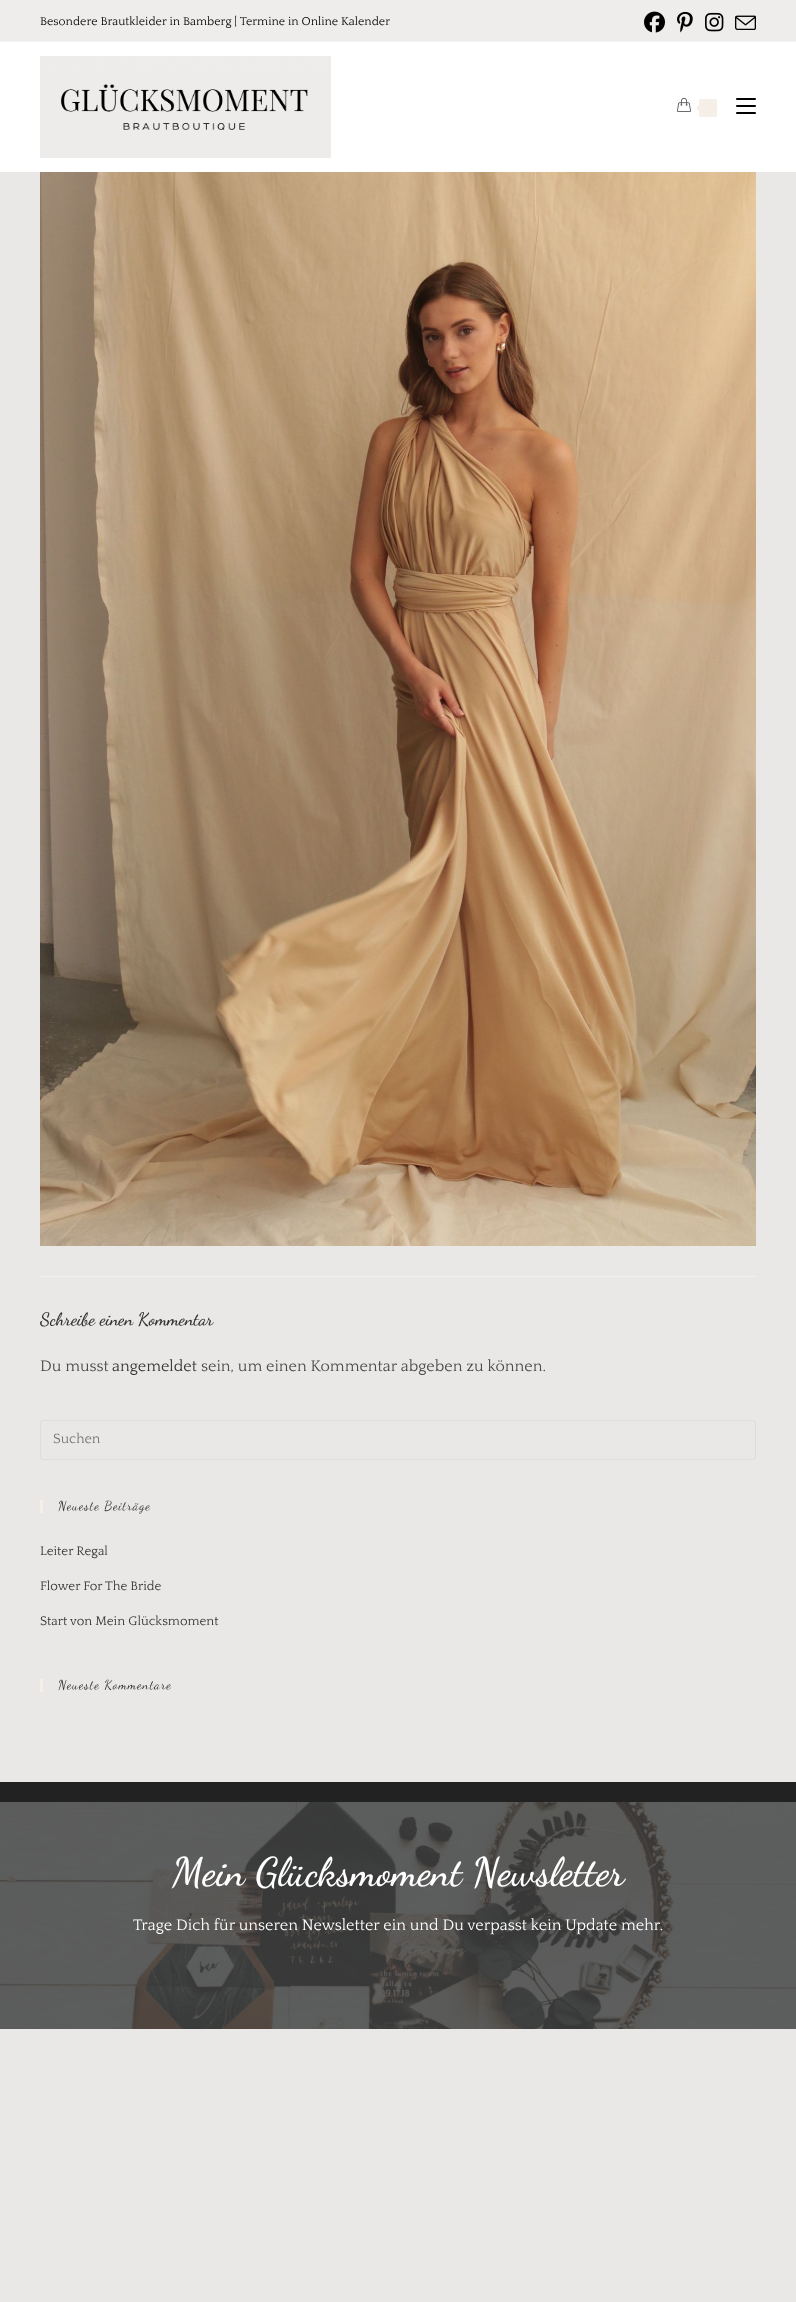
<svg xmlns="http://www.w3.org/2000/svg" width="796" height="2302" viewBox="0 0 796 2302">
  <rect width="100%" height="100%" fill="#eae7e7"/>
  <path d="M0 0h796v41H0z" fill="#efedeb"/>
  <path d="M0 41h796v1H0z" fill="#f1f1f1"/>
  <image x="644" y="11" width="21" height="22" href="img/1.png"/>
  <image x="677" y="11" width="16" height="22" href="img/2.png"/>
  <image x="705" y="12" width="19" height="20" href="img/3.png"/>
  <image x="735" y="15" width="21" height="15" href="img/4.png"/>
  <path d="M0 42h796v130H0z" fill="#fff"/>
  <image x="40" y="56" width="291" height="102" href="img/5.png"/>
  <image x="677" y="97" width="14" height="15" href="img/6.png"/>
  <rect x="699" y="99" width="18" height="18" rx="2" fill="#f5efe8"/>
  <path d="M701 103V113L696 108Z" fill="#f5efe8"/>
  <rect x="736" y="98" width="20" height="2" rx="1" fill="#000"/>
  <rect x="736" y="105" width="20" height="2" rx="1" fill="#000"/>
  <rect x="736" y="112" width="20" height="2" rx="1" fill="#000"/>
  <image x="40" y="172" width="716" height="1074" href="img/7.png"/>
  <path d="M40 1276h716v1H40z" fill="#f1f1f1"/>
  <rect x="40.5" y="1420.5" width="715" height="39" rx="2.5" fill="none" stroke="#ddd"/>
  <path d="M40 1500h3v13H40z" fill="#f5efe8"/>
  <path d="M40 1679h3v13H40z" fill="#f5efe8"/>
  <path d="M0 1782h796v20H0z" fill="#222"/>
  <image x="0" y="1802" width="796" height="227" href="img/8.png"/>
  <text x="40" y="25" font-family="Quattrocento" font-size="12" fill="#000">Besondere Brautkleider in Bamberg | Termine in Online Kalender</text>
  <text x="40" y="1325" font-family="Dancing Script" font-size="18" font-weight="600" fill="#333">Schreibe einen Kommentar</text>
  <text x="40" y="1371" font-family="Quattrocento" font-size="16" fill="#4a4a4a">Du musst</text>
  <text x="112" y="1371" font-family="Quattrocento" font-size="16" fill="#333">angemeldet</text>
  <text x="201" y="1371" font-family="Quattrocento" font-size="16" fill="#4a4a4a">sein, um einen Kommentar abgeben zu können.</text>
  <text x="53" y="1443" font-family="Quattrocento" font-size="14" fill="#757575">Suchen</text>
  <text x="58" y="1510" font-family="Dancing Script" font-size="13" letter-spacing="1" fill="#333">Neueste Beiträge</text>
  <g font-family="Quattrocento" font-size="13" fill="#333">
    <text x="40" y="1555">Leiter Regal</text>
    <text x="40" y="1590">Flower For The Bride</text>
    <text x="40" y="1625">Start von Mein Glücksmoment</text>
  </g>
  <text x="58" y="1689" font-family="Dancing Script" font-size="13" letter-spacing="1" fill="#333">Neueste Kommentare</text>
  <text x="172" y="1885" font-family="Dancing Script" font-size="40" font-weight="600" fill="#fff">Mein Glücksmoment Newsletter</text>
  <text x="133" y="1930" font-family="Quattrocento" font-size="16" fill="#fff">Trage Dich für unseren Newsletter ein und Du verpasst kein Update mehr.</text>
</svg>
